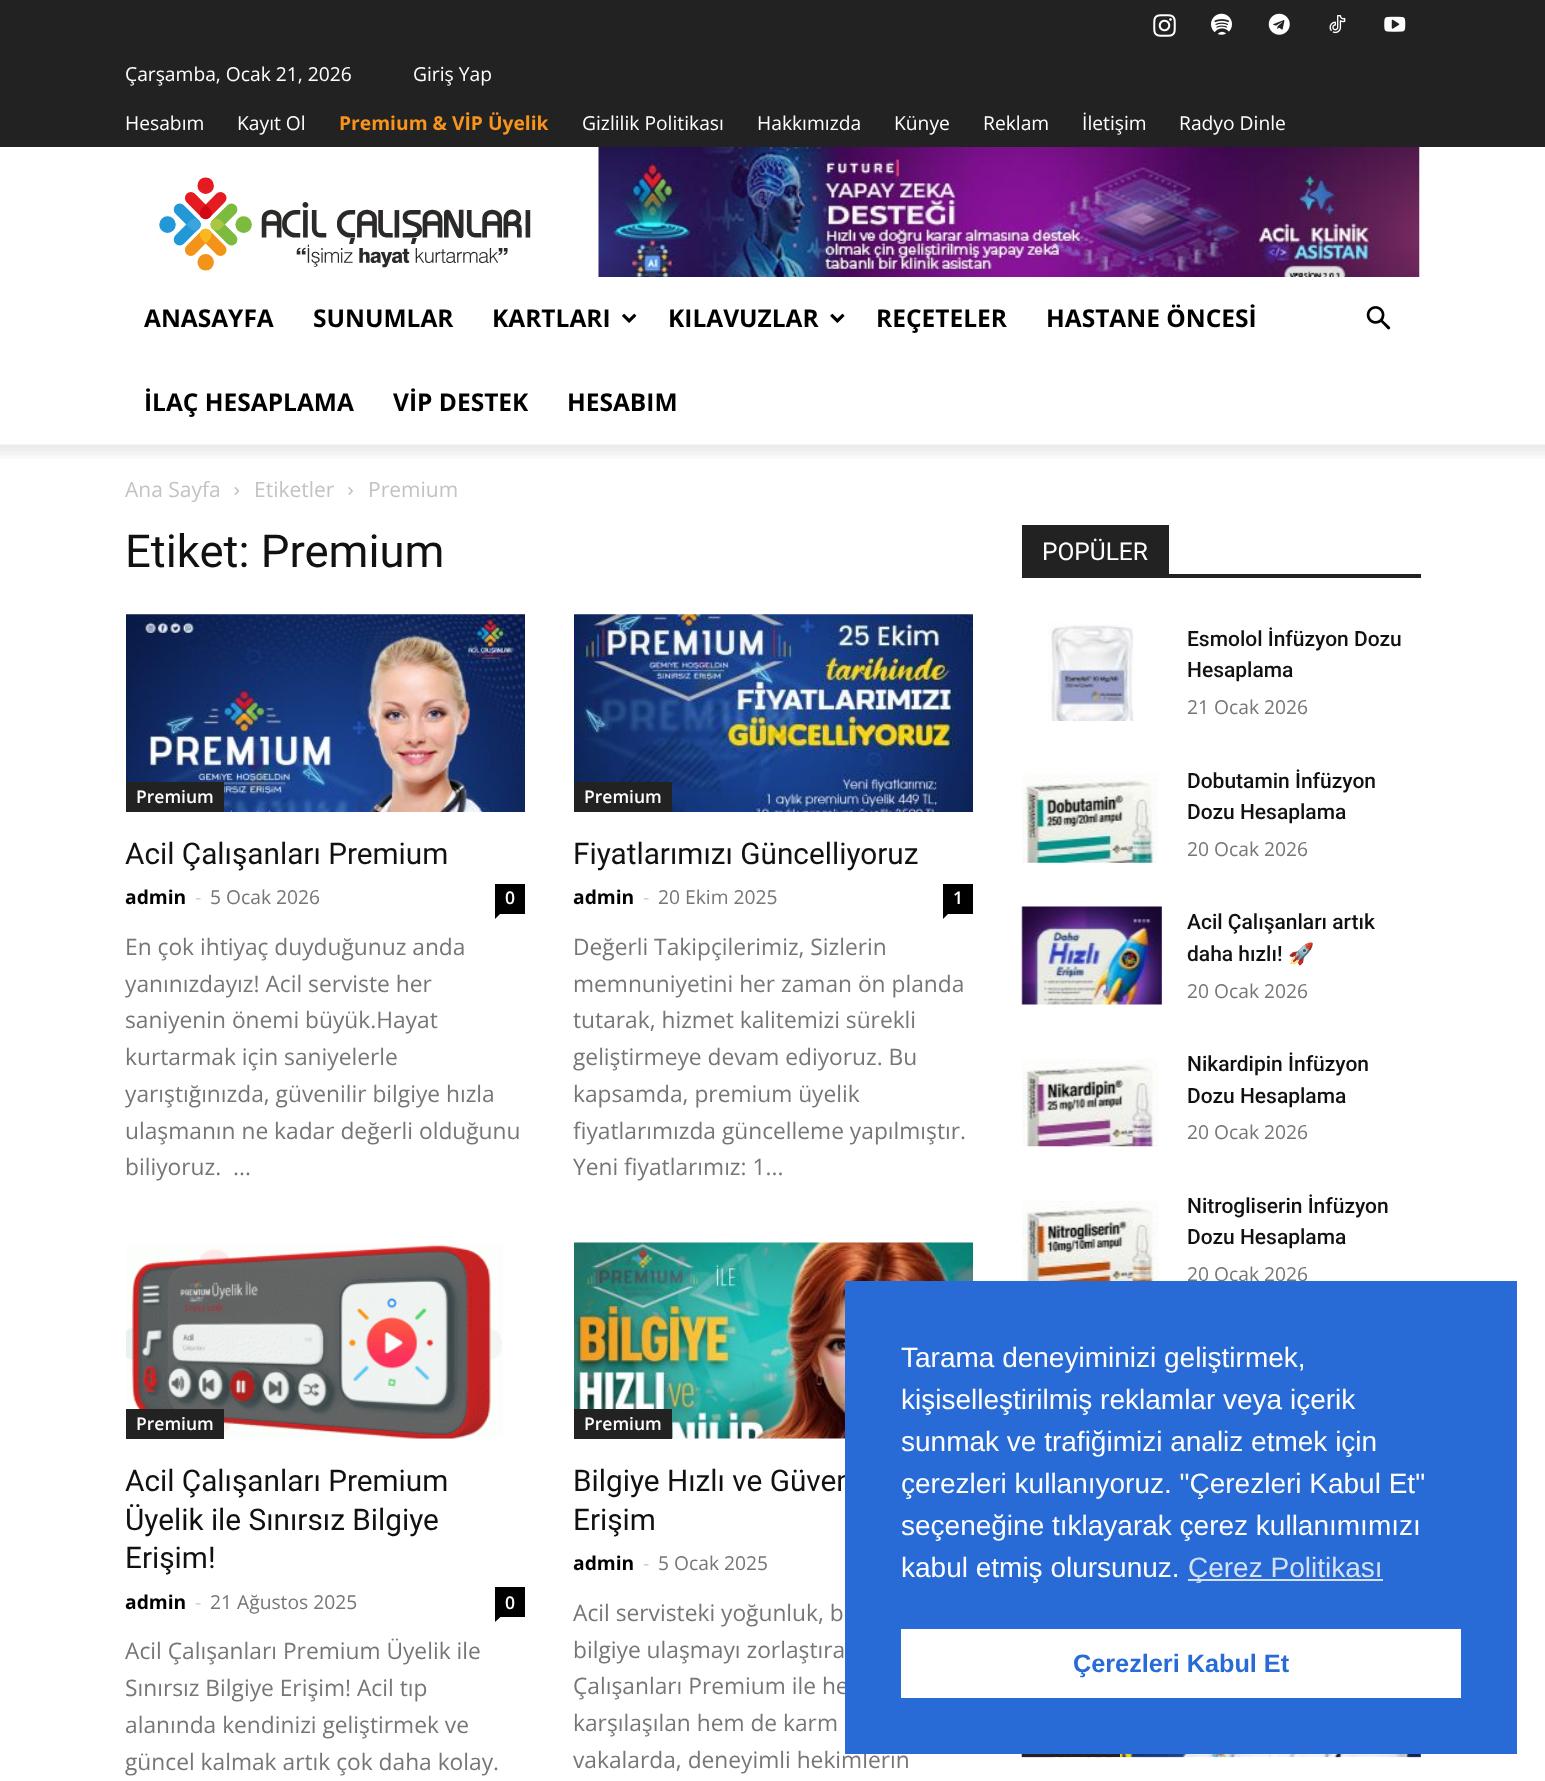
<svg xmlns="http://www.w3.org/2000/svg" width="1545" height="1781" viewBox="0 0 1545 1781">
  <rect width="100%" height="100%" fill="#fff"/>
  <path d="M0 0h1545v147H0z" fill="#222"/>
  <image x="1153" y="14" width="23" height="23" href="img/1.png"/>
  <image x="1211" y="13" width="21" height="22" href="img/2.png"/>
  <image x="1268" y="13" width="22" height="22" href="img/3.png"/>
  <image x="1329" y="15" width="17" height="19" href="img/4.png"/>
  <image x="1384" y="16" width="22" height="16" href="img/5.png"/>
  <image x="159" y="177" width="372" height="94" href="img/6.png"/>
  <image x="598" y="147" width="822" height="130" href="img/7.png"/>
  <image x="622" y="313" width="15" height="10" href="img/8.png"/>
  <image x="830" y="313" width="15" height="10" href="img/9.png"/>
  <image x="1366" y="306" width="25" height="24" href="img/10.png"/>
  <image x="0" y="444" width="1545" height="15" href="img/11.png"/>
  <image x="234" y="487" width="6" height="8" href="img/12.png"/>
  <image x="348" y="487" width="5" height="8" href="img/13.png"/>
  <image x="126" y="614" width="399" height="198" href="img/14.png"/>
  <path d="M126 782h98v30H126z" fill="#222"/>
  <path d="M495 884h30v30H495z" fill="#000"/>
  <path d="M495 913.5H500.5L495 919Z" fill="#000"/>
  <image x="574" y="614" width="399" height="198" href="img/15.png"/>
  <path d="M574 782h98v30H574z" fill="#222"/>
  <path d="M943 884h30v30H943z" fill="#000"/>
  <path d="M943 913.5H948.5L943 919Z" fill="#000"/>
  <image x="126" y="1244" width="377" height="195" href="img/16.png"/>
  <path d="M126 1409h98v30H126z" fill="#222"/>
  <path d="M495 1587h30v30H495z" fill="#000"/>
  <path d="M495 1617H500.5L495 1622Z" fill="#000"/>
  <image x="574" y="1242" width="399" height="197" href="img/17.png"/>
  <path d="M574 1409h98v30H574z" fill="#222"/>
  <path d="M1022 574h399v4H1022z" fill="#222"/>
  <path d="M1022 525h147v49H1022z" fill="#222"/>
  <image x="1048" y="623" width="86" height="98" href="img/18.png"/>
  <image x="1022" y="773" width="136" height="90" href="img/19.png"/>
  <image x="1021" y="906" width="141" height="99" href="img/20.png"/>
  <image x="1022" y="1059" width="137" height="88" href="img/21.png"/>
  <image x="1022" y="1201" width="137" height="80" href="img/22.png"/>
  <image x="1021" y="1754" width="400" height="4" href="img/23.png"/>
  <path d="M1022 1754h98v3H1022z" fill="#222"/>
  <g font-family="Open Sans" font-size="19.25" fill="#fff">
    <text x="125" y="81">Çarşamba, Ocak 21, 2026</text>
    <text x="413" y="81">Giriş Yap</text>
    <text x="125" y="130">Hesabım</text>
    <text x="237" y="130">Kayıt Ol</text>
  </g>
  <text x="339" y="130" font-family="Open Sans" font-size="19.25" font-weight="bold" fill="#f7941d">Premium &amp; VİP Üyelik</text>
  <g font-family="Open Sans" font-size="19.25" fill="#fff">
    <text x="582" y="130">Gizlilik Politikası</text>
    <text x="757" y="130">Hakkımızda</text>
    <text x="894" y="130">Künye</text>
    <text x="983" y="130">Reklam</text>
    <text x="1082" y="130">İletişim</text>
    <text x="1179" y="130">Radyo Dinle</text>
  </g>
  <g font-family="Open Sans" font-size="24.5" font-weight="bold" fill="#000">
    <text x="144" y="327">ANASAYFA</text>
    <text x="313" y="327">SUNUMLAR</text>
    <text x="492" y="327">KARTLARI</text>
    <text x="668" y="327">KILAVUZLAR</text>
    <text x="876" y="327">REÇETELER</text>
    <text x="1046" y="327">HASTANE ÖNCESİ</text>
    <text x="144" y="411">İLAÇ HESAPLAMA</text>
    <text x="393" y="411">VİP DESTEK</text>
    <text x="567" y="411">HESABIM</text>
  </g>
  <g font-family="Open Sans" font-size="21" fill="#c3c3c3">
    <text x="125" y="497">Ana Sayfa</text>
    <text x="254" y="497">Etiketler</text>
    <text x="368" y="497">Premium</text>
  </g>
  <text x="125" y="567" font-family="Roboto" font-size="45.5" fill="#111">Etiket: Premium</text>
  <text x="136" y="803" font-family="Open Sans" font-size="17.5" font-weight="600" fill="#fff">Premium</text>
  <text x="125" y="864" font-family="Roboto" font-size="29.75" fill="#111">Acil Çalışanları Premium</text>
  <text x="125" y="904" font-family="Open Sans" font-size="19.25" font-weight="bold" fill="#000">admin</text>
  <text x="195" y="904" font-family="Open Sans" font-size="19.25" fill="#ccc">-</text>
  <text x="210" y="904" font-family="Open Sans" font-size="19.25" fill="#767676">5 Ocak 2026</text>
  <text x="505" y="904" font-family="Open Sans" font-size="17.5" font-weight="600" fill="#fff">0</text>
  <g font-family="Open Sans" font-size="22.75" fill="#767676">
    <text x="125" y="955">En çok ihtiyaç duyduğunuz anda</text>
    <text x="125" y="992">yanınızdayız! Acil serviste her</text>
    <text x="125" y="1028">saniyenin önemi büyük.Hayat</text>
    <text x="125" y="1065">kurtarmak için saniyelerle</text>
    <text x="125" y="1102">yarıştığınızda, güvenilir bilgiye hızla</text>
    <text x="125" y="1139">ulaşmanın ne kadar değerli olduğunu</text>
    <text x="125" y="1175" xml:space="preserve">biliyoruz.  ...</text>
  </g>
  <text x="584" y="803" font-family="Open Sans" font-size="17.5" font-weight="600" fill="#fff">Premium</text>
  <text x="573" y="864" font-family="Roboto" font-size="29.75" fill="#111">Fiyatlarımızı Güncelliyoruz</text>
  <text x="573" y="904" font-family="Open Sans" font-size="19.25" font-weight="bold" fill="#000">admin</text>
  <text x="643" y="904" font-family="Open Sans" font-size="19.25" fill="#ccc">-</text>
  <text x="658" y="904" font-family="Open Sans" font-size="19.25" fill="#767676">20 Ekim 2025</text>
  <text x="953" y="904" font-family="Open Sans" font-size="17.5" font-weight="600" fill="#fff">1</text>
  <g font-family="Open Sans" font-size="22.75" fill="#767676">
    <text x="573" y="955">Değerli Takipçilerimiz, Sizlerin</text>
    <text x="573" y="992">memnuniyetini her zaman ön planda</text>
    <text x="573" y="1028">tutarak, hizmet kalitemizi sürekli</text>
    <text x="573" y="1065">geliştirmeye devam ediyoruz. Bu</text>
    <text x="573" y="1102">kapsamda, premium üyelik</text>
    <text x="573" y="1139">fiyatlarımızda güncelleme yapılmıştır.</text>
    <text x="573" y="1175">Yeni fiyatlarımız: 1...</text>
  </g>
  <text x="136" y="1430" font-family="Open Sans" font-size="17.5" font-weight="600" fill="#fff">Premium</text>
  <g font-family="Roboto" font-size="29.75" fill="#111">
    <text x="125" y="1491">Acil Çalışanları Premium</text>
    <text x="125" y="1530">Üyelik ile Sınırsız Bilgiye</text>
    <text x="125" y="1568">Erişim!</text>
  </g>
  <text x="125" y="1609" font-family="Open Sans" font-size="19.25" font-weight="bold" fill="#000">admin</text>
  <text x="195" y="1609" font-family="Open Sans" font-size="19.25" fill="#ccc">-</text>
  <text x="210" y="1609" font-family="Open Sans" font-size="19.25" fill="#767676">21 Ağustos 2025</text>
  <text x="505" y="1609" font-family="Open Sans" font-size="17.5" font-weight="600" fill="#fff">0</text>
  <g font-family="Open Sans" font-size="22.75" fill="#767676">
    <text x="125" y="1659">Acil Çalışanları Premium Üyelik ile</text>
    <text x="125" y="1696">Sınırsız Bilgiye Erişim! Acil tıp</text>
    <text x="125" y="1733">alanında kendinizi geliştirmek ve</text>
    <text x="125" y="1770">güncel kalmak artık çok daha kolay.</text>
  </g>
  <text x="584" y="1430" font-family="Open Sans" font-size="17.5" font-weight="600" fill="#fff">Premium</text>
  <g font-family="Roboto" font-size="29.75" fill="#111">
    <text x="573" y="1491">Bilgiye Hızlı ve Güven</text>
    <text x="573" y="1530">Erişim</text>
  </g>
  <text x="573" y="1570" font-family="Open Sans" font-size="19.25" font-weight="bold" fill="#000">admin</text>
  <text x="643" y="1570" font-family="Open Sans" font-size="19.25" fill="#ccc">-</text>
  <text x="658" y="1570" font-family="Open Sans" font-size="19.25" fill="#767676">5 Ocak 2025</text>
  <g font-family="Open Sans" font-size="22.75" fill="#767676">
    <text x="573" y="1621">Acil servisteki yoğunluk, b</text>
    <text x="573" y="1658">bilgiye ulaşmayı zorlaştıra</text>
    <text x="573" y="1694">Çalışanları Premium ile he</text>
    <text x="573" y="1731">karşılaşılan hem de karm</text>
    <text x="573" y="1768">vakalarda, deneyimli hekimlerin</text>
  </g>
  <text x="1042" y="560" font-family="Roboto" font-size="24.5" fill="#fff">POPÜLER</text>
  <g font-family="Roboto" font-size="21" font-weight="500" fill="#111">
    <text x="1187" y="646">Esmolol İnfüzyon Dozu</text>
    <text x="1187" y="677">Hesaplama</text>
  </g>
  <text x="1187" y="714" font-family="Open Sans" font-size="19.25" fill="#767676">21 Ocak 2026</text>
  <g font-family="Roboto" font-size="21" font-weight="500" fill="#111">
    <text x="1187" y="788">Dobutamin İnfüzyon</text>
    <text x="1187" y="819">Dozu Hesaplama</text>
  </g>
  <text x="1187" y="856" font-family="Open Sans" font-size="19.25" fill="#767676">20 Ocak 2026</text>
  <g font-family="Roboto" font-size="21" font-weight="500" fill="#111">
    <text x="1187" y="929">Acil Çalışanları artık</text>
    <text x="1187" y="961">daha hızlı!</text>
  </g>
  <text x="1288" y="961" font-family="Noto Color Emoji" font-size="21" fill="#111">🚀</text>
  <text x="1187" y="998" font-family="Open Sans" font-size="19.25" fill="#767676">20 Ocak 2026</text>
  <g font-family="Roboto" font-size="21" font-weight="500" fill="#111">
    <text x="1187" y="1071">Nikardipin İnfüzyon</text>
    <text x="1187" y="1103">Dozu Hesaplama</text>
  </g>
  <text x="1187" y="1139" font-family="Open Sans" font-size="19.25" fill="#767676">20 Ocak 2026</text>
  <g font-family="Roboto" font-size="21" font-weight="500" fill="#111">
    <text x="1187" y="1213">Nitrogliserin İnfüzyon</text>
    <text x="1187" y="1244">Dozu Hesaplama</text>
  </g>
  <text x="1187" y="1281" font-family="Open Sans" font-size="19.25" fill="#767676">20 Ocak 2026</text>
  <path d="M845 1281h672v473H845z" fill="#286bd7"/>
  <g font-family="Liberation Sans" font-size="28" fill="#fff">
    <text x="901" y="1367">Tarama deneyiminizi geliştirmek,</text>
    <text x="901" y="1409">kişiselleştirilmiş reklamlar veya içerik</text>
    <text x="901" y="1451">sunmak ve trafiğimizi analiz etmek için</text>
    <text x="901" y="1493">çerezleri kullanıyoruz. "Çerezleri Kabul Et"</text>
    <text x="901" y="1535">seçeneğine tıklayarak çerez kullanımımızı</text>
    <text x="901" y="1577">kabul etmiş olursunuz.</text>
  </g>
  <path d="M1188 1579h195v2H1188z" fill="#d4e1f7"/>
  <text x="1188" y="1577" font-family="Liberation Sans" font-size="28" fill="#d4e1f7">Çerez Politikası</text>
  <path d="M901 1629h560v69H901z" fill="#fff"/>
  <text x="1073" y="1672" font-family="Liberation Sans" font-size="25.25" font-weight="bold" fill="#286bd7">Çerezleri Kabul Et</text>
</svg>
